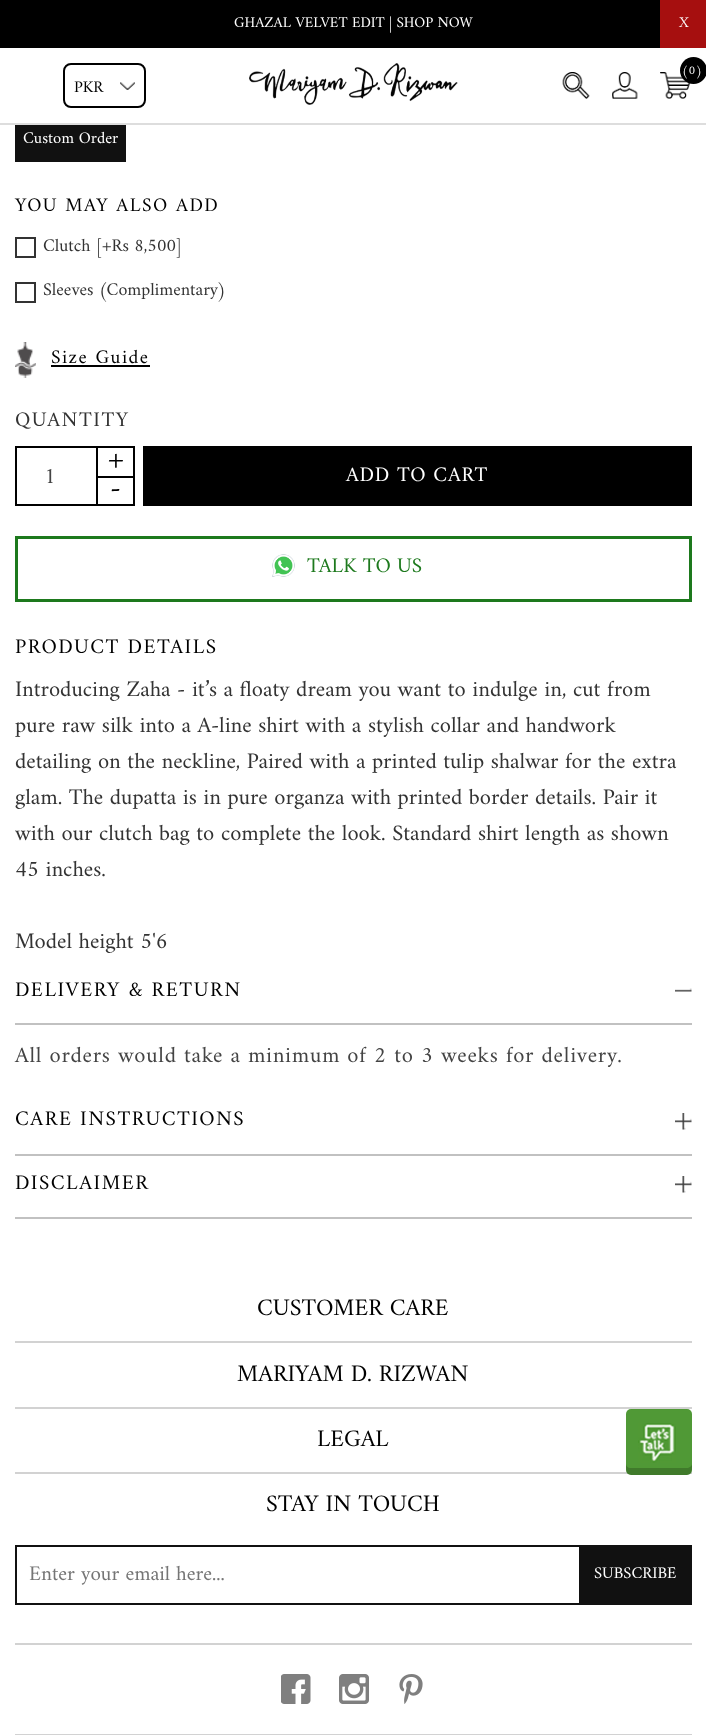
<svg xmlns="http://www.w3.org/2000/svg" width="706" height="1735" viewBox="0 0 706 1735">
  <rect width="100%" height="100%" fill="#fff"/>
  <path d="M0 123h706v2H0z" fill="#ddd"/>
  <path d="M0 0h660v48H0z" fill="#000"/>
  <path d="M660 0h46v48H660z" fill="#a60f0f"/>
  <image x="249" y="63" width="209" height="42" href="img/1.png"/>
  <image x="562" y="72" width="28" height="27" href="img/2.png"/>
  <image x="612" y="72" width="26" height="27" href="img/3.png"/>
  <image x="660" y="72" width="31" height="27" href="img/4.png"/>
  <circle cx="693.5" cy="70.5" r="13.5" fill="#000"/>
  <image x="120" y="82" width="15" height="8" href="img/5.png"/>
  <rect x="64" y="64" width="81" height="43" rx="7" fill="none" stroke="#000" stroke-width="2"/>
  <path d="M15 125h111v37H15z" fill="#111"/>
  <path d="M16 238h19v19H16z" fill="none" stroke="#333" stroke-width="2"/>
  <path d="M16 283h19v19H16z" fill="none" stroke="#333" stroke-width="2"/>
  <image x="15" y="342" width="21" height="36" href="img/6.png"/>
  <path d="M51 365h99v2H51z" fill="#000"/>
  <path d="M16 447h118v58H16z" fill="none" stroke="#000" stroke-width="2"/>
  <path d="M96 476h38v2H96z" fill="#000"/>
  <path d="M96 447h2v57H96z" fill="#000"/>
  <path d="M143 446h549v60H143z" fill="#000"/>
  <path d="M16.5 537.5h674v63H16.5z" fill="none" stroke="#1d791d" stroke-width="3"/>
  <image x="272" y="554" width="23" height="23" href="img/7.png"/>
  <image x="675" y="988" width="17" height="4" href="img/8.png"/>
  <path d="M15 1023h677v2H15z" fill="#c1c1c1"/>
  <image x="675" y="1113" width="17" height="17" href="img/9.png"/>
  <path d="M15 1154h677v2H15z" fill="#c1c1c1"/>
  <image x="675" y="1176" width="17" height="17" href="img/9.png"/>
  <path d="M15 1217h677v2H15z" fill="#c1c1c1"/>
  <path d="M15 1341h677v2H15z" fill="#d2d2d2"/>
  <path d="M15 1407h677v2H15z" fill="#d2d2d2"/>
  <path d="M15 1472h677v2H15z" fill="#d2d2d2"/>
  <path d="M15 1643h677v2H15z" fill="#d2d2d2"/>
  <path d="M16 1546h675v58H16z" fill="none" stroke="#111" stroke-width="2"/>
  <path d="M579 1547h111v56H579z" fill="#111"/>
  <path d="M15 1734h677v1H15z" fill="#d2d2d2"/>
  <image x="281" y="1674" width="30" height="30" href="img/10.png"/>
  <image x="339" y="1674" width="30" height="30" href="img/11.png"/>
  <image x="399" y="1674" width="24" height="30" href="img/12.png"/>
  <rect x="626" y="1409" width="66" height="66" rx="5" fill="#509936"/>
  <path d="M626 1464C626 1476 627 1475 640 1475H678C691 1475 692 1476 692 1464C692 1466 689 1468 687 1468H630C628 1468 626 1466 626 1464Z" fill="#00000033"/>
  <image x="638" y="1423" width="38" height="40" href="img/13.png"/>
  <g font-family="Amiri" font-size="15" fill="#fff">
    <text x="234" y="27">GHAZAL VELVET EDIT | SHOP NOW</text>
    <text x="679" y="27">X</text>
  </g>
  <text x="682" y="74" font-family="Amiri" font-size="12" letter-spacing="1.5" fill="#fff">(0)</text>
  <text x="74" y="92" font-family="Amiri" font-size="16.5" fill="#000">PKR</text>
  <text x="23" y="143" font-family="Amiri" font-size="16.5" fill="#fff">Custom Order</text>
  <text x="15" y="211" font-family="Amiri" font-size="19.5" letter-spacing="1.5" fill="#000">YOU MAY ALSO ADD</text>
  <g font-family="Amiri" font-size="18" fill="#333">
    <text x="43" y="251">Clutch [+Rs 8,500]</text>
    <text x="43" y="295">Sleeves (Complimentary)</text>
  </g>
  <text x="51" y="363" font-family="Amiri" font-size="19.5" letter-spacing="1.5" fill="#000">Size Guide</text>
  <text x="15" y="426" font-family="Amiri" font-size="21" letter-spacing="1.5" fill="#333">QUANTITY</text>
  <text x="108" y="468" font-family="Amiri" font-size="30" fill="#000">+</text>
  <text x="44" y="483" font-family="Amiri" font-size="22.5" fill="#444">1</text>
  <text x="110" y="497" font-family="Amiri" font-size="30" fill="#000">-</text>
  <text x="346" y="481" font-family="Amiri" font-size="21" letter-spacing="0.75" fill="#fff">ADD TO CART</text>
  <text x="307" y="572" font-family="Amiri" font-size="21" fill="#1d791d">TALK TO US</text>
  <text x="15" y="653" font-family="Amiri" font-size="21" letter-spacing="1.5" fill="#000">PRODUCT DETAILS</text>
  <g font-family="Amiri" font-size="22.5" fill="#333">
    <text x="15" y="696">Introducing Zaha - it’s a floaty dream you want to indulge in, cut from</text>
    <text x="15" y="732">pure raw silk into a A-line shirt with a stylish collar and handwork</text>
    <text x="15" y="768">detailing on the neckline, Paired with a printed tulip shalwar for the extra</text>
    <text x="15" y="804">glam. The dupatta is in pure organza with printed border details. Pair it</text>
    <text x="15" y="840">with our clutch bag to complete the look. Standard shirt length as shown</text>
    <text x="15" y="876">45 inches.</text>
    <text x="15" y="948">Model height 5'6</text>
  </g>
  <text x="15" y="996" font-family="Amiri" font-size="21" letter-spacing="1.5" fill="#000">DELIVERY &amp; RETURN</text>
  <text x="15" y="1062" font-family="Amiri" font-size="22.5" letter-spacing="0.75" fill="#444">All orders would take a minimum of 2 to 3 weeks for delivery.</text>
  <g font-family="Amiri" font-size="21" letter-spacing="1.5" fill="#000">
    <text x="15" y="1125">CARE INSTRUCTIONS</text>
    <text x="15" y="1189">DISCLAIMER</text>
  </g>
  <g font-family="Amiri" font-size="24" fill="#000">
    <text x="257" y="1315">CUSTOMER CARE</text>
    <text x="237" y="1381">MARIYAM D. RIZWAN</text>
    <text x="317" y="1446">LEGAL</text>
    <text x="266" y="1511">STAY IN TOUCH</text>
  </g>
  <text x="29" y="1580" font-family="Amiri" font-size="21" fill="#757575">Enter your email here...</text>
  <text x="594" y="1578" font-family="Amiri" font-size="16.5" fill="#fff">SUBSCRIBE</text>
</svg>
